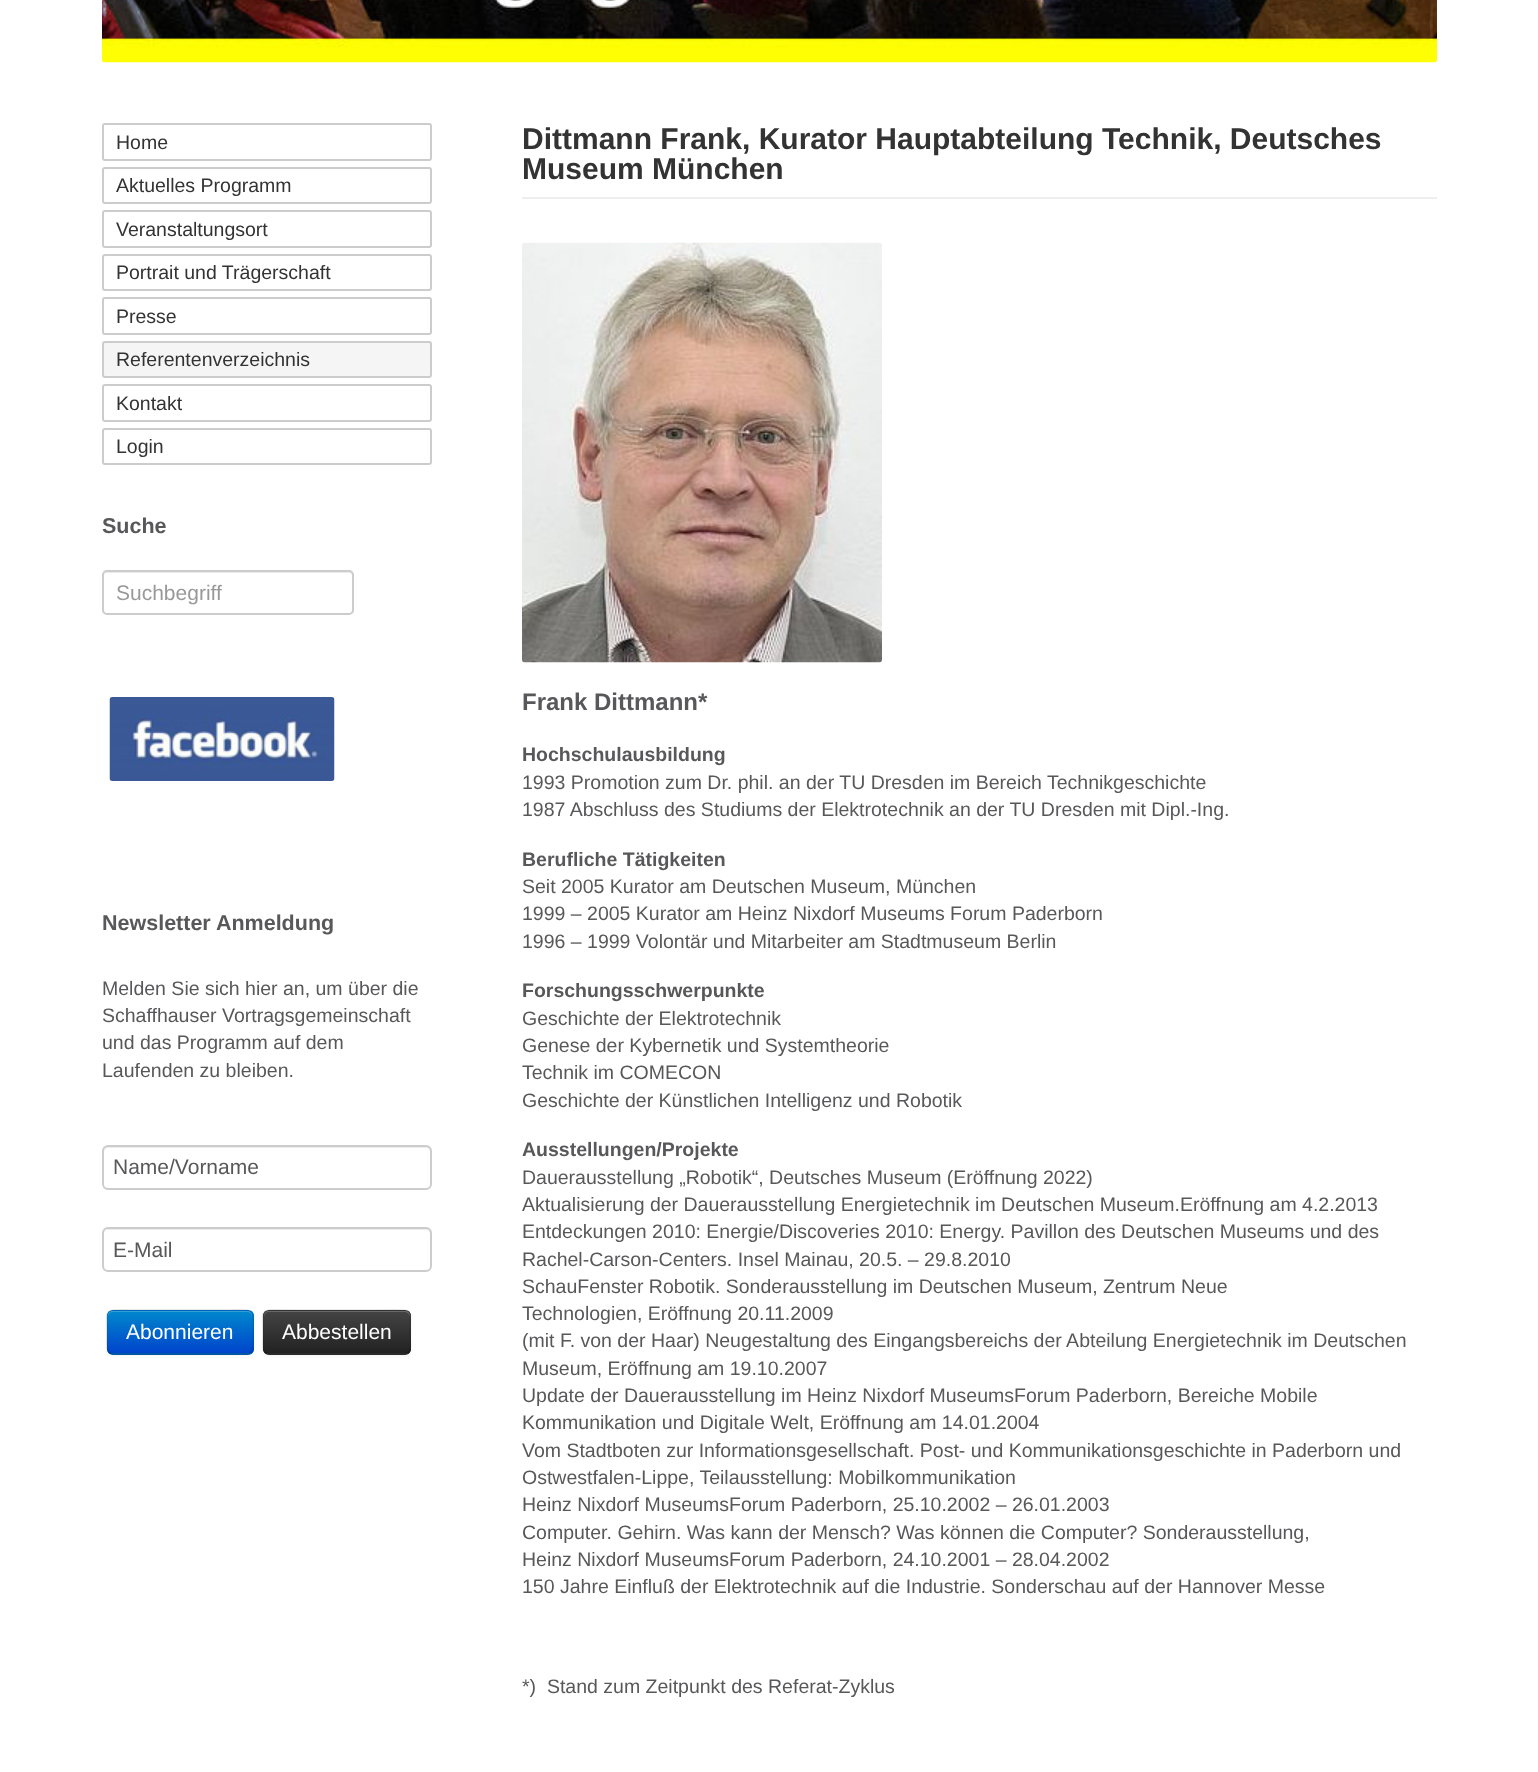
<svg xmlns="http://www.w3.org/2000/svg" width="1538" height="1772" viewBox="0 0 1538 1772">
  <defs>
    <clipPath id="clip1"><rect x="107" y="1310" width="147" height="45" rx="6"/></clipPath>
    <linearGradient id="g1" gradientUnits="userSpaceOnUse" x1="180" y1="1311" x2="180" y2="1353"><stop offset="0" stop-color="#08c"/><stop offset="1" stop-color="#04c"/></linearGradient>
    <clipPath id="clip2"><rect x="263" y="1310" width="148" height="45" rx="6"/></clipPath>
    <linearGradient id="g2" gradientUnits="userSpaceOnUse" x1="337" y1="1311" x2="337" y2="1353"><stop offset="0" stop-color="#444"/><stop offset="1" stop-color="#222"/></linearGradient>
  </defs>
  <rect width="100%" height="100%" fill="#fff"/>
  <image x="102" y="0" width="1335" height="63" href="img/1.png"/>
  <rect x="103" y="124" width="328" height="36" rx="2" fill="none" stroke="#ccc" stroke-width="2"/>
  <rect x="103" y="168" width="328" height="35" rx="2" fill="none" stroke="#ccc" stroke-width="2"/>
  <rect x="103" y="211" width="328" height="36" rx="2" fill="none" stroke="#ccc" stroke-width="2"/>
  <rect x="103" y="255" width="328" height="35" rx="2" fill="none" stroke="#ccc" stroke-width="2"/>
  <rect x="103" y="298" width="328" height="36" rx="2" fill="none" stroke="#ccc" stroke-width="2"/>
  <rect x="103" y="342" width="328" height="35" rx="2" fill="#f5f5f5" stroke="#ccc" stroke-width="2"/>
  <rect x="103" y="385" width="328" height="36" rx="2" fill="none" stroke="#ccc" stroke-width="2"/>
  <rect x="103" y="429" width="328" height="35" rx="2" fill="none" stroke="#ccc" stroke-width="2"/>
  <path d="M106 573H350C351 573 352 574 352 576V613C353 613 353 612 353 611V575C353 573 352 572 350 572H107C105 572 104 573 104 575V576C104 574 105 573 106 573Z" fill="#ececec"/>
  <rect x="103" y="571" width="250" height="43" rx="4" fill="none" stroke="#ccc" stroke-width="2"/>
  <image x="109" y="697" width="226" height="84" href="img/2.png"/>
  <path d="M108 1148H426C428 1148 430 1150 430 1152V1186C431 1185 431 1184 431 1183V1151C431 1148 429 1146 426 1146H109C106 1146 104 1148 104 1151V1152C104 1150 106 1148 108 1148Z" fill="#ececec"/>
  <rect x="103" y="1146" width="328" height="43" rx="5" fill="none" stroke="#ccc" stroke-width="2"/>
  <path d="M108 1230H426C428 1230 430 1232 430 1234V1269C431 1268 431 1267 431 1266V1234C431 1231 429 1229 426 1229H109C106 1229 104 1231 104 1234C104 1232 106 1230 108 1230Z" fill="#ececec"/>
  <rect x="103" y="1228" width="328" height="43" rx="5" fill="none" stroke="#ccc" stroke-width="2"/>
  <rect x="107" y="1311" width="147" height="45" rx="6" fill="#0000000d" filter="blur(1.5px)"/>
  <rect x="107" y="1310" width="147" height="45" rx="6" fill="#006dcc"/>
  <g clip-path="url(#clip1)">
    <path d="M107 1311h147v42H107z" fill="url(#g1)"/>
  </g>
  <path d="M112 1312H248C250 1312 252 1315 252 1317V1316C252 1313 250 1311 247 1311H113C110 1311 108 1313 108 1316V1317C108 1315 110 1312 112 1312Z" fill="#ffffff33"/>
  <path d="M251 1352C250 1353 249 1354 247.5 1354H112.5C111 1354 110 1353 109 1352" fill="none" stroke="#00000040" stroke-width="1.5"/>
  <path d="M109 1352C105.5 1349 107 1341 107 1337.5C107 1305.5 101.5 1310 135 1310H225C258.5 1310 253 1305.5 253 1337.5C253 1341 254.5 1349 251 1352" fill="none" stroke="#0000001a" stroke-width="1.5"/>
  <rect x="263" y="1311" width="148" height="45" rx="6" fill="#0000000d" filter="blur(1.5px)"/>
  <rect x="263" y="1310" width="148" height="45" rx="6" fill="#363636"/>
  <g clip-path="url(#clip2)">
    <path d="M263 1311h148v42H263z" fill="url(#g2)"/>
  </g>
  <path d="M268 1312H405C407 1312 410 1315 410 1317V1316C410 1313 408 1311 405 1311H269C266 1311 264 1313 264 1316V1317C264 1315 266 1312 268 1312Z" fill="#ffffff33"/>
  <path d="M408.5 1352C407.5 1353 406.5 1354 405 1354H268.5C267 1354 266 1353 265 1352" fill="none" stroke="#00000040" stroke-width="1.5"/>
  <path d="M265 1352C261.5 1349 263 1341 263 1337.5C263 1305.5 257.5 1310 291 1310H382C416 1310 410 1305.5 410 1337.5C410 1341 412 1349 408.5 1352" fill="none" stroke="#0000001a" stroke-width="1.5"/>
  <path d="M522 197h915v2H522z" fill="#eee"/>
  <image x="522" y="242" width="360" height="421" href="img/3.png"/>
  <g font-family="Liberation Sans" font-size="19.5" fill="#333">
    <text x="116" y="149">Home</text>
    <text x="116" y="192">Aktuelles Programm</text>
    <text x="116" y="236">Veranstaltungsort</text>
    <text x="116" y="279">Portrait und Trägerschaft</text>
    <text x="116" y="323">Presse</text>
    <text x="116" y="366">Referentenverzeichnis</text>
    <text x="116" y="410">Kontakt</text>
    <text x="116" y="453">Login</text>
  </g>
  <text x="102" y="533" font-family="Liberation Sans" font-size="21.5" font-weight="bold" fill="#58585a">Suche</text>
  <text x="116" y="600" font-family="Liberation Sans" font-size="21" fill="#999">Suchbegriff</text>
  <text x="102" y="930" font-family="Liberation Sans" font-size="21.5" font-weight="bold" fill="#58585a">Newsletter Anmeldung</text>
  <g font-family="Liberation Sans" font-size="19.5" fill="#58585a">
    <text x="102" y="995">Melden Sie sich hier an, um über die</text>
    <text x="102" y="1022">Schaffhauser Vortragsgemeinschaft</text>
    <text x="102" y="1049">und das Programm auf dem</text>
    <text x="102" y="1077">Laufenden zu bleiben.</text>
  </g>
  <g font-family="Liberation Sans" font-size="21" fill="#58585a">
    <text x="113" y="1174">Name/Vorname</text>
    <text x="113" y="1257">E-Mail</text>
  </g>
  <g font-family="Liberation Sans" font-size="21" fill="#fff">
    <text x="126" y="1339">Abonnieren</text>
    <text x="282" y="1339">Abbestellen</text>
  </g>
  <g font-family="Liberation Sans" font-size="30" font-weight="bold" fill="#333">
    <text x="522" y="149">Dittmann Frank, Kurator Hauptabteilung Technik, Deutsches</text>
    <text x="522" y="179">Museum München</text>
  </g>
  <text x="522" y="710" font-family="Liberation Sans" font-size="24" font-weight="bold" fill="#58585a">Frank Dittmann*</text>
  <text x="522" y="761" font-family="Liberation Sans" font-size="19.5" font-weight="bold" fill="#58585a">Hochschulausbildung</text>
  <g font-family="Liberation Sans" font-size="19.5" fill="#58585a">
    <text x="522" y="789">1993 Promotion zum Dr. phil. an der TU Dresden im Bereich Technikgeschichte</text>
    <text x="522" y="816">1987 Abschluss des Studiums der Elektrotechnik an der TU Dresden mit Dipl.-Ing.</text>
  </g>
  <text x="522" y="866" font-family="Liberation Sans" font-size="19.5" font-weight="bold" fill="#58585a">Berufliche Tätigkeiten</text>
  <g font-family="Liberation Sans" font-size="19.5" fill="#58585a">
    <text x="522" y="893">Seit 2005 Kurator am Deutschen Museum, München</text>
    <text x="522" y="920">1999 – 2005 Kurator am Heinz Nixdorf Museums Forum Paderborn</text>
    <text x="522" y="948">1996 – 1999 Volontär und Mitarbeiter am Stadtmuseum Berlin</text>
  </g>
  <text x="522" y="997" font-family="Liberation Sans" font-size="19.5" font-weight="bold" fill="#58585a">Forschungsschwerpunkte</text>
  <g font-family="Liberation Sans" font-size="19.5" fill="#58585a">
    <text x="522" y="1025">Geschichte der Elektrotechnik</text>
    <text x="522" y="1052">Genese der Kybernetik und Systemtheorie</text>
    <text x="522" y="1079">Technik im COMECON</text>
    <text x="522" y="1107">Geschichte der Künstlichen Intelligenz und Robotik</text>
  </g>
  <text x="522" y="1156" font-family="Liberation Sans" font-size="19.5" font-weight="bold" fill="#58585a">Ausstellungen/Projekte</text>
  <g font-family="Liberation Sans" font-size="19.5" fill="#58585a">
    <text x="522" y="1184">Dauerausstellung „Robotik“, Deutsches Museum (Eröffnung 2022)</text>
    <text x="522" y="1211">Aktualisierung der Dauerausstellung Energietechnik im Deutschen Museum.Eröffnung am 4.2.2013</text>
    <text x="522" y="1238">Entdeckungen 2010: Energie/Discoveries 2010: Energy. Pavillon des Deutschen Museums und des</text>
    <text x="522" y="1266">Rachel-Carson-Centers. Insel Mainau, 20.5. – 29.8.2010</text>
    <text x="522" y="1293">SchauFenster Robotik. Sonderausstellung im Deutschen Museum, Zentrum Neue</text>
    <text x="522" y="1320">Technologien, Eröffnung 20.11.2009</text>
    <text x="522" y="1347">(mit F. von der Haar) Neugestaltung des Eingangsbereichs der Abteilung Energietechnik im Deutschen</text>
    <text x="522" y="1375">Museum, Eröffnung am 19.10.2007</text>
    <text x="522" y="1402">Update der Dauerausstellung im Heinz Nixdorf MuseumsForum Paderborn, Bereiche Mobile</text>
    <text x="522" y="1429">Kommunikation und Digitale Welt, Eröffnung am 14.01.2004</text>
    <text x="522" y="1457">Vom Stadtboten zur Informationsgesellschaft. Post- und Kommunikationsgeschichte in Paderborn und</text>
    <text x="522" y="1484">Ostwestfalen-Lippe, Teilausstellung: Mobilkommunikation</text>
    <text x="522" y="1511">Heinz Nixdorf MuseumsForum Paderborn, 25.10.2002 – 26.01.2003</text>
    <text x="522" y="1539">Computer. Gehirn. Was kann der Mensch? Was können die Computer? Sonderausstellung,</text>
    <text x="522" y="1566">Heinz Nixdorf MuseumsForum Paderborn, 24.10.2001 – 28.04.2002</text>
    <text x="522" y="1593">150 Jahre Einfluß der Elektrotechnik auf die Industrie. Sonderschau auf der Hannover Messe</text>
    <text x="522" y="1693" xml:space="preserve">*)  Stand zum Zeitpunkt des Referat-Zyklus</text>
  </g>
</svg>
